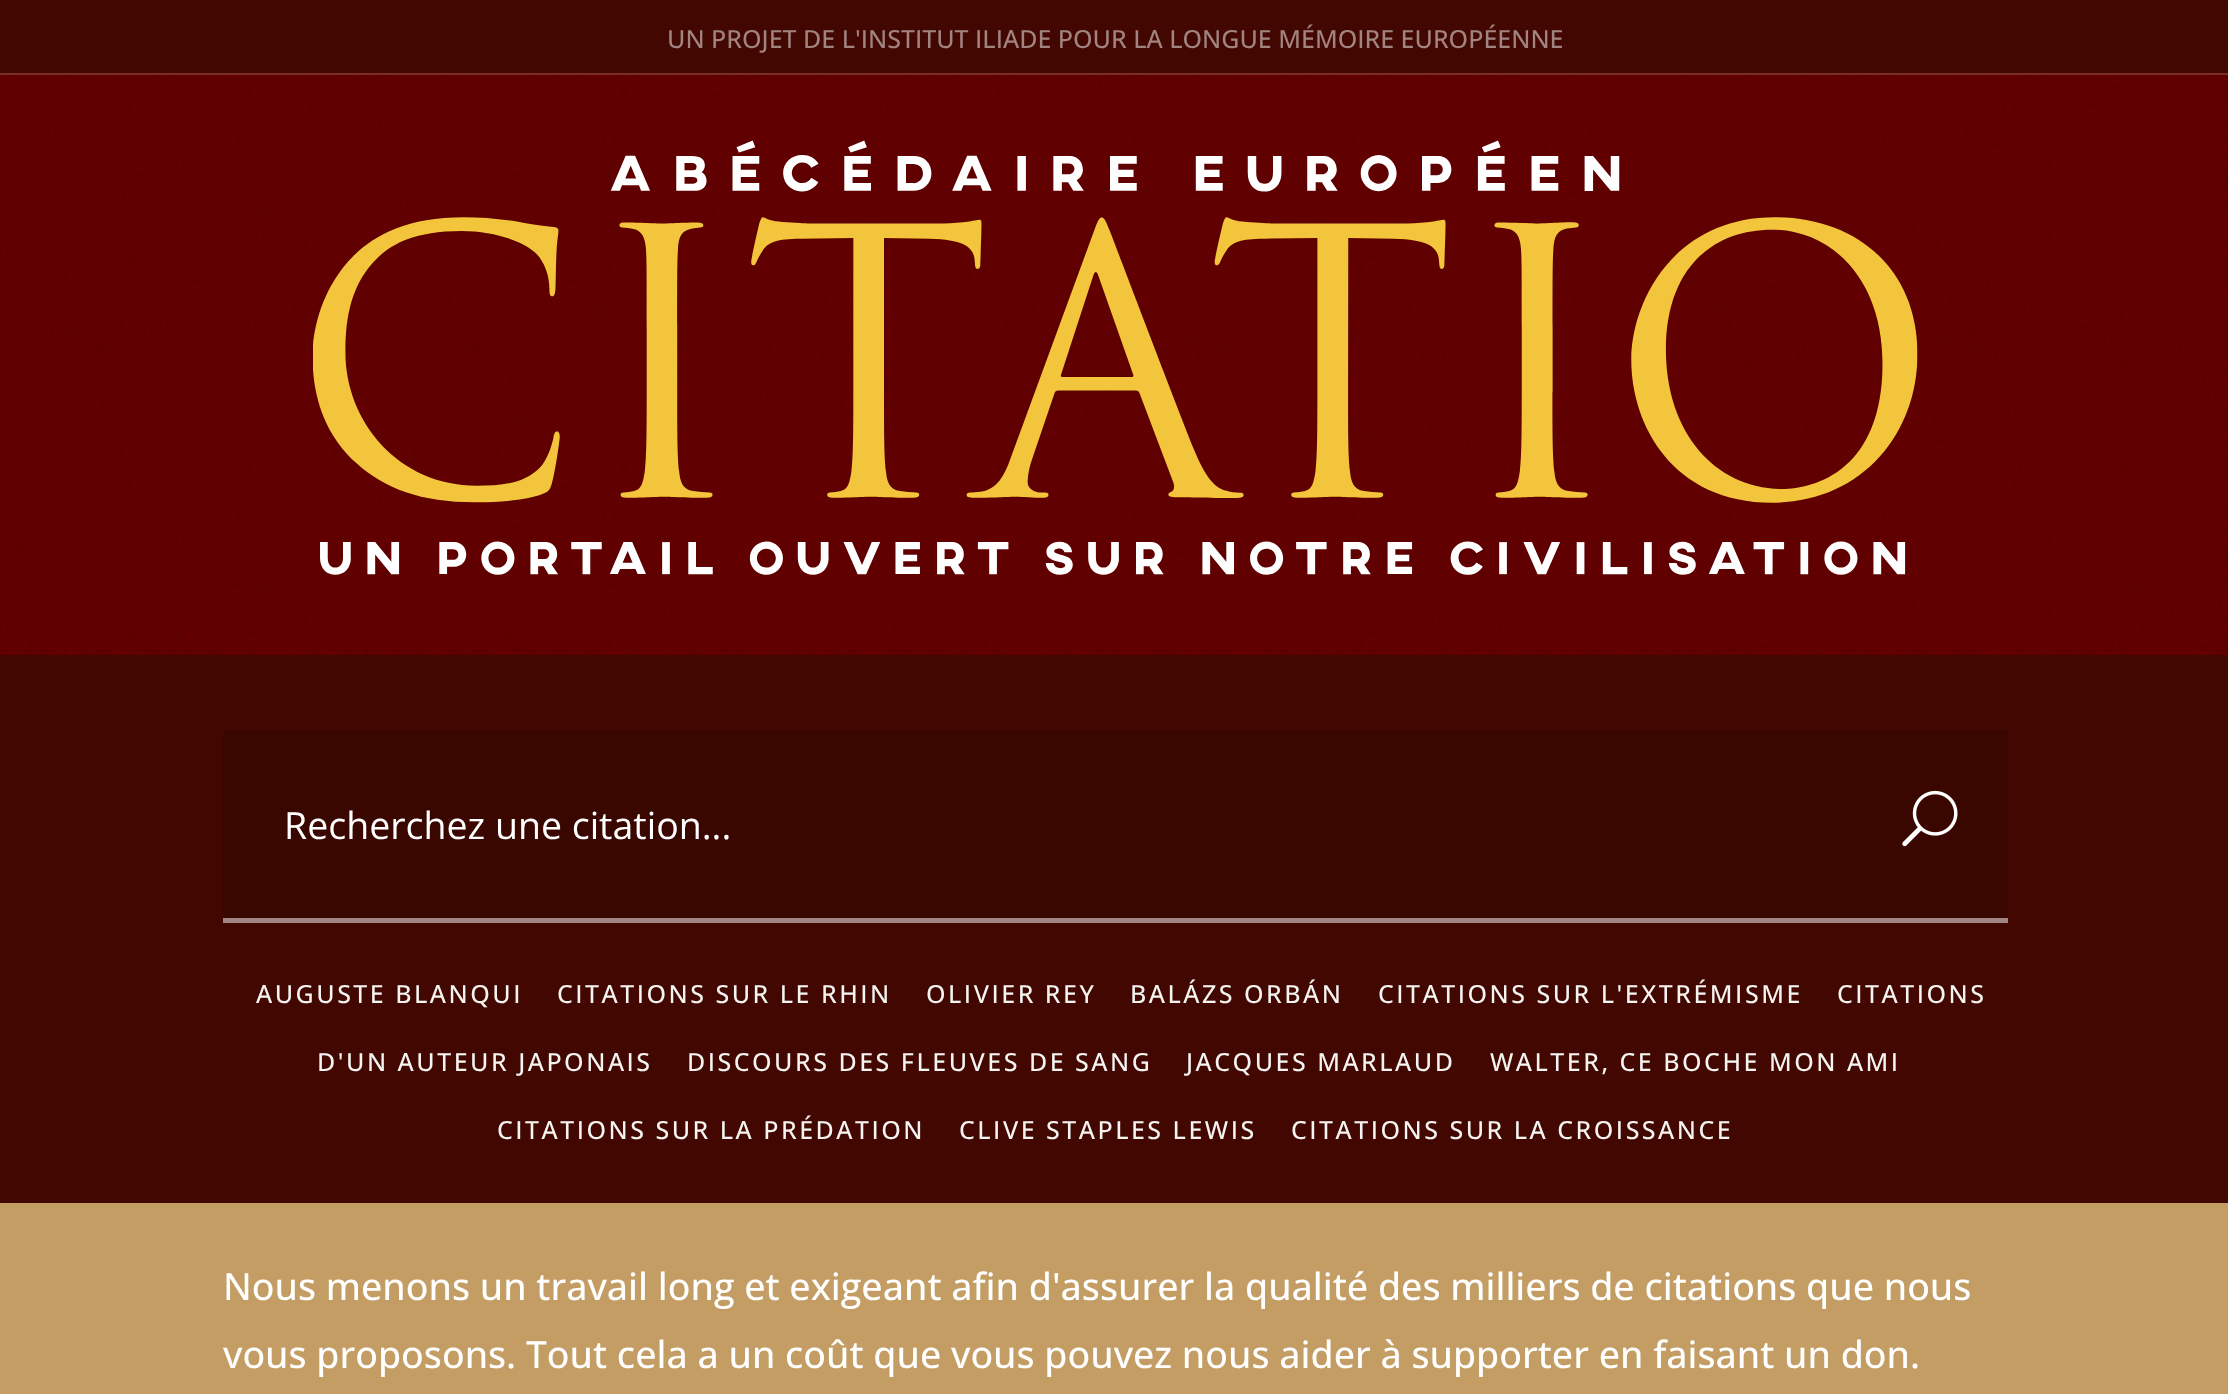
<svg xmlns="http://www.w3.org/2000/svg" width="2228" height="1394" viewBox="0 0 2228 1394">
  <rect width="100%" height="100%" fill="#420700"/>
  <path d="M0 73h2228v2H0z" fill="#792f26"/>
  <path d="M0 75h2228v580H0z" fill="#6d0000"/>
  <image x="0" y="75" width="2228" height="580" href="img/1.png"/>
  <image x="313" y="140" width="1605" height="435" href="img/2.png"/>
  <path d="M223 918h1785v5H223z" fill="#a28582"/>
  <path d="M223 730h1785v188H223z" fill="#3a0600"/>
  <image x="1902" y="790" width="56" height="57" href="img/3.png"/>
  <path d="M0 1203h2228v191H0z" fill="#c39d63"/>
  <text x="667" y="48" font-family="Open Sans" font-size="25" font-weight="500" fill="#a18380">UN PROJET DE L'INSTITUT ILIADE POUR LA LONGUE MÉMOIRE EUROPÉENNE</text>
  <text x="284" y="839" font-family="Open Sans" font-size="37.5" fill="#fff">Recherchez une citation...</text>
  <g font-family="Open Sans" font-size="25" font-weight="500" letter-spacing="2.5" fill="#f5f4f1">
    <text x="256" y="1003">AUGUSTE BLANQUI</text>
    <text x="557" y="1003">CITATIONS SUR LE RHIN</text>
    <text x="926" y="1003">OLIVIER REY</text>
    <text x="1130" y="1003">BALÁZS ORBÁN</text>
    <text x="1378" y="1003">CITATIONS SUR L'EXTRÉMISME</text>
    <text x="1837" y="1003">CITATIONS</text>
    <text x="317" y="1071">D'UN AUTEUR JAPONAIS</text>
    <text x="687" y="1071">DISCOURS DES FLEUVES DE SANG</text>
    <text x="1186" y="1071">JACQUES MARLAUD</text>
    <text x="1490" y="1071">WALTER, CE BOCHE MON AMI</text>
    <text x="497" y="1139">CITATIONS SUR LA PRÉDATION</text>
    <text x="959" y="1139">CLIVE STAPLES LEWIS</text>
    <text x="1291" y="1139">CITATIONS SUR LA CROISSANCE</text>
  </g>
  <g font-family="Open Sans" font-size="37.5" font-weight="500" fill="#fff">
    <text x="223" y="1300">Nous menons un travail long et exigeant afin d'assurer la qualité des milliers de citations que nous</text>
    <text x="223" y="1368">vous proposons. Tout cela a un coût que vous pouvez nous aider à supporter en faisant un don.</text>
  </g>
</svg>
